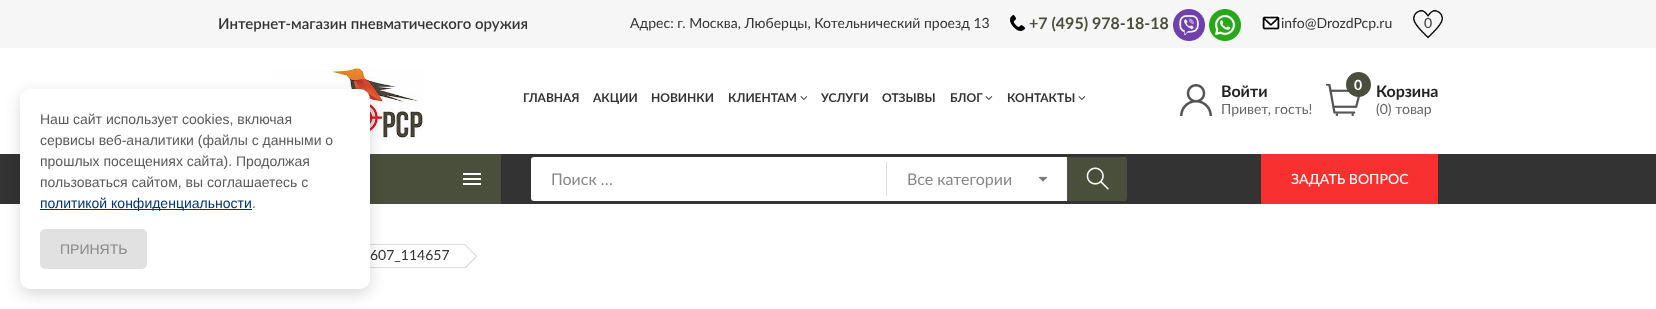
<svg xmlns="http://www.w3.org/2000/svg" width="1656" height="309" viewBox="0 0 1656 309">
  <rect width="100%" height="100%" fill="#fff"/>
  <image x="273" y="68" width="150" height="70" href="img/6.png"/>
  <path d="M0 154h1656v50H0z" fill="#333"/>
  <path d="M370 154h131v50H370z" fill="#4a4f3c"/>
  <path d="M304.5 244.5h161v23H304.5z" fill="none" stroke="#ddd"/>
  <rect x="20" y="94" width="350" height="200" rx="10" fill="#00000026" filter="blur(7.5px)"/>
  <rect x="20" y="89" width="350" height="200" rx="10" fill="#fff"/>
  <path d="M40 209h212v1H40z" fill="#01356f"/>
  <rect x="40" y="229" width="107" height="40" rx="5" fill="#e1e1e1"/>
  <path d="M0 0h1656v48H0z" fill="#f6f6f6"/>
  <image x="1010" y="15" width="15" height="16" href="img/1.png"/>
  <image x="1173" y="9" width="32" height="32" href="img/2.png"/>
  <image x="1209" y="9" width="32" height="32" href="img/3.png"/>
  <image x="1261" y="15" width="20" height="16" href="img/4.png"/>
  <image x="1413" y="9" width="30" height="30" href="img/5.png"/>
  <image x="800" y="96" width="8" height="4" href="img/7.png"/>
  <image x="985" y="96" width="8" height="4" href="img/7.png"/>
  <image x="1078" y="96" width="8" height="4" href="img/7.png"/>
  <image x="1180" y="84" width="32" height="32" href="img/8.png"/>
  <image x="1326" y="84" width="35" height="32" href="img/9.png"/>
  <circle cx="1358.5" cy="84.5" r="12.5" fill="#4a4f3c"/>
  <path d="M463 173h18v2H463z" fill="#fff"/>
  <path d="M463 178h18v2H463z" fill="#fff"/>
  <path d="M463 183h18v2H463z" fill="#fff"/>
  <rect x="531" y="157" width="595" height="44" rx="3" fill="#fff"/>
  <image x="1038" y="176" width="10" height="6" href="img/10.png"/>
  <path d="M886 162h1v34H886z" fill="#dfdfdf"/>
  <path d="M1067 157H1124C1125.5 157 1127 158.5 1127 160V198C1127 199.5 1125.5 201 1124 201H1067Z" fill="#4a4f3c"/>
  <image x="1086" y="167" width="23" height="23" href="img/11.png"/>
  <path d="M1261 154h177v50H1261z" fill="#f83030"/>
  <path d="M464.5 245L476 256.5L464.5 267.5L453 256.5Z" fill="#fff"/>
  <path d="M465.5 244.5L477.5 256.5L476.5 257L464.5 245Z" fill="#ddd"/>
  <path d="M476.5 255.5L477.5 256.5L465.5 268.5L464.5 267.5Z" fill="#ddd"/>
  <g font-family="Liberation Sans" font-size="14" fill="#5a5a5a">
    <text x="40" y="124">Наш сайт использует cookies, включая</text>
    <text x="40" y="145">сервисы веб-аналитики (файлы с данными о</text>
    <text x="40" y="166">прошлых посещениях сайта). Продолжая</text>
    <text x="40" y="187">пользоваться сайтом, вы соглашаетесь с</text>
  </g>
  <text x="40" y="208" font-family="Liberation Sans" font-size="14" fill="#01356f">политикой конфиденциальности</text>
  <text x="252" y="208" font-family="Liberation Sans" font-size="14" fill="#5a5a5a">.</text>
  <text x="60" y="254" font-family="Liberation Sans" font-size="14" fill="#888">ПРИНЯТЬ</text>
  <text x="218" y="29" font-family="Lato" font-size="15" font-weight="600" fill="#333">Интернет-магазин пневматического оружия</text>
  <text x="630" y="28" font-family="Lato" font-size="14" fill="#333">Адрес: г. Москва, Люберцы, Котельнический проезд 13</text>
  <text x="1029" y="29" font-family="Lato" font-size="16" font-weight="bold" fill="#4a4f3c">+7 (495) 978-18-18</text>
  <g font-family="Lato" font-size="14" fill="#333">
    <text x="1281" y="28">info@DrozdPcp.ru</text>
    <text x="1424" y="28">0</text>
  </g>
  <g font-family="Lato" font-size="12" font-weight="bold" fill="#333">
    <text x="523" y="102">ГЛАВНАЯ</text>
    <text x="593" y="102">АКЦИИ</text>
    <text x="651" y="102">НОВИНКИ</text>
    <text x="728" y="102">КЛИЕНТАМ</text>
    <text x="821" y="102">УСЛУГИ</text>
    <text x="882" y="102">ОТЗЫВЫ</text>
    <text x="950" y="102">БЛОГ</text>
    <text x="1007" y="102">КОНТАКТЫ</text>
  </g>
  <text x="1221" y="97" font-family="Lato" font-size="16" font-weight="bold" fill="#222">Войти</text>
  <text x="1221" y="114" font-family="Lato" font-size="14" fill="#666">Привет, гость!</text>
  <text x="1354" y="90" font-family="Lato" font-size="14" font-weight="bold" fill="#fff">0</text>
  <text x="1376" y="97" font-family="Lato" font-size="16" font-weight="bold" fill="#222">Корзина</text>
  <text x="1376" y="114" font-family="Lato" font-size="14" fill="#666">(0) товар</text>
  <g font-family="Lato" font-size="16" fill="#888">
    <text x="551" y="185">Поиск …</text>
    <text x="907" y="185">Все категории</text>
  </g>
  <text x="1291" y="184" font-family="Lato" font-size="14" font-weight="500" fill="#fff">ЗАДАТЬ ВОПРОС</text>
  <text x="370" y="260" font-family="Lato" font-size="14" fill="#333">607_114657</text>
</svg>
